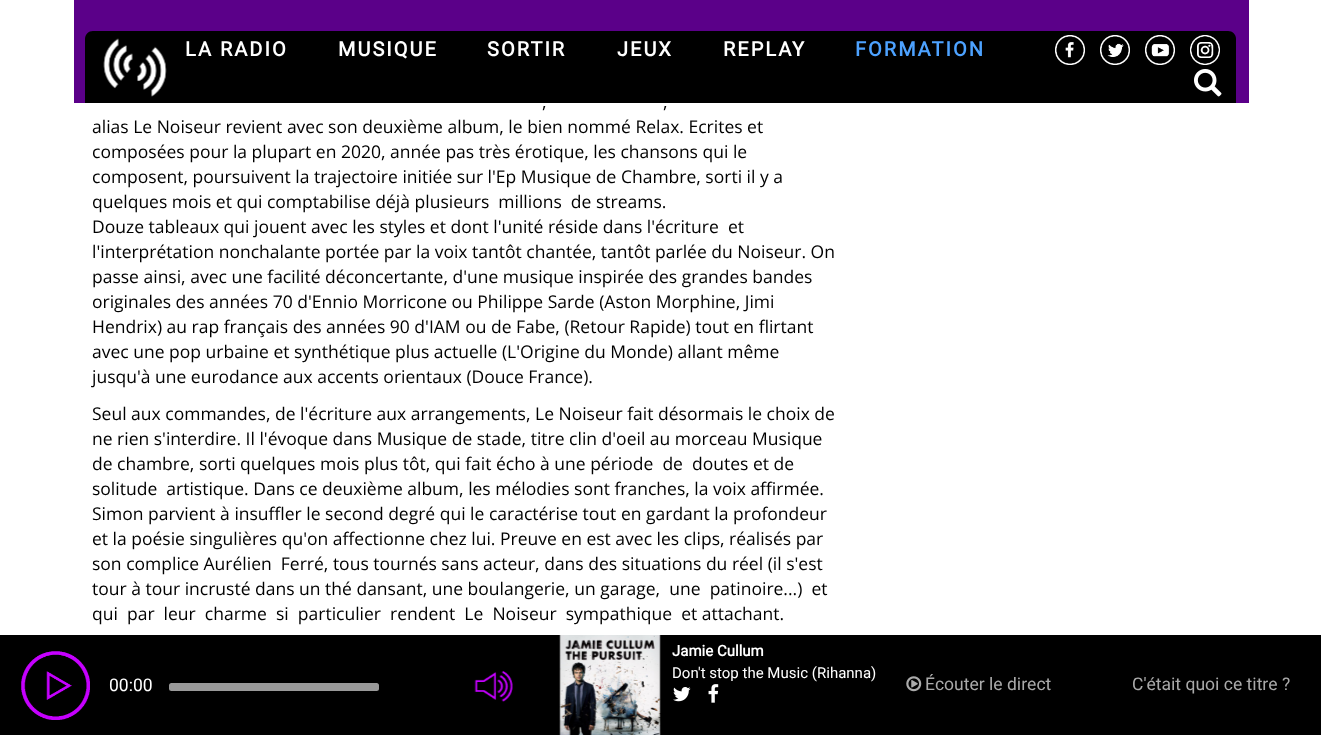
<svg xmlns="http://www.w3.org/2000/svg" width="1321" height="735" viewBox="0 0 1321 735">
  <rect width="100%" height="100%" fill="#fff"/>
  <path d="M74 0h1175v103H74z" fill="#5b0089"/>
  <path d="M93 31H1228C1232.5 31 1236 34.5 1236 39V103H85V39C85 34.5 88.5 31 93 31Z" fill="#000"/>
  <image x="103" y="38" width="64" height="59" href="img/1.png"/>
  <image x="1055" y="35" width="30" height="30" href="img/2.png"/>
  <image x="1100" y="35" width="30" height="30" href="img/3.png"/>
  <image x="1145" y="35" width="30" height="30" href="img/4.png"/>
  <image x="1190" y="35" width="30" height="30" href="img/5.png"/>
  <image x="1194" y="69" width="28" height="28" href="img/6.png"/>
  <path d="M0 635h1321v100H0z" fill="#000"/>
  <image x="21" y="651" width="69" height="69" href="img/7.png"/>
  <rect x="169" y="683" width="210" height="8" rx="2.5" fill="#999"/>
  <image x="474" y="671" width="39" height="31" href="img/8.png"/>
  <image x="559" y="635" width="102" height="100" href="img/9.png"/>
  <image x="673" y="687" width="18" height="15" href="img/10.png"/>
  <image x="708" y="684" width="11" height="19" href="img/11.png"/>
  <image x="906" y="676" width="16" height="16" href="img/12.png"/>
  <g font-family="Heebo" font-size="20" font-weight="bold" letter-spacing="2" fill="#fff">
    <text x="185" y="56">LA RADIO</text>
    <text x="338" y="56">MUSIQUE</text>
    <text x="487" y="56">SORTIR</text>
    <text x="617" y="56">JEUX</text>
    <text x="723" y="56">REPLAY</text>
  </g>
  <text x="855" y="56" font-family="Heebo" font-size="20" font-weight="bold" letter-spacing="2" fill="#4da2ff">FORMATION</text>
  <g font-family="Open Sans" font-size="17.5" fill="#000">
    <text x="542" y="108">,</text>
    <text x="663" y="108">,</text>
    <text x="92" y="133">alias Le Noiseur revient avec son deuxième album, le bien nommé Relax. Ecrites et</text>
    <text x="92" y="158">composées pour la plupart en 2020, année pas très érotique, les chansons qui le</text>
    <text x="92" y="183">composent, poursuivent la trajectoire initiée sur l'Ep Musique de Chambre, sorti il y a</text>
    <text x="92" y="208" xml:space="preserve">quelques mois et qui comptabilise déjà plusieurs  millions  de streams.</text>
    <text x="92" y="233" xml:space="preserve">Douze tableaux qui jouent avec les styles et dont l'unité réside dans l'écriture  et</text>
    <text x="92" y="258">l'interprétation nonchalante portée par la voix tantôt chantée, tantôt parlée du Noiseur. On</text>
    <text x="92" y="283">passe ainsi, avec une facilité déconcertante, d'une musique inspirée des grandes bandes</text>
    <text x="92" y="308">originales des années 70 d'Ennio Morricone ou Philippe Sarde (Aston Morphine, Jimi</text>
    <text x="92" y="333">Hendrix) au rap français des années 90 d'IAM ou de Fabe, (Retour Rapide) tout en flirtant</text>
    <text x="92" y="358">avec une pop urbaine et synthétique plus actuelle (L'Origine du Monde) allant même</text>
    <text x="92" y="383">jusqu'à une eurodance aux accents orientaux (Douce France).</text>
    <text x="92" y="420">Seul aux commandes, de l'écriture aux arrangements, Le Noiseur fait désormais le choix de</text>
    <text x="92" y="445">ne rien s'interdire. Il l'évoque dans Musique de stade, titre clin d'oeil au morceau Musique</text>
    <text x="92" y="470" xml:space="preserve">de chambre, sorti quelques mois plus tôt, qui fait écho à une période  de  doutes et de</text>
    <text x="92" y="495" xml:space="preserve">solitude  artistique. Dans ce deuxième album, les mélodies sont franches, la voix affirmée.</text>
    <text x="92" y="520">Simon parvient à insuffler le second degré qui le caractérise tout en gardant la profondeur</text>
    <text x="92" y="545">et la poésie singulières qu'on affectionne chez lui. Preuve en est avec les clips, réalisés par</text>
    <text x="92" y="570" xml:space="preserve">son complice Aurélien  Ferré, tous tournés sans acteur, dans des situations du réel (il s'est</text>
    <text x="92" y="595" xml:space="preserve">tour à tour incrusté dans un thé dansant, une boulangerie, un garage,  une  patinoire...)  et</text>
    <text x="92" y="620" xml:space="preserve">qui  par  leur  charme  si  particulier  rendent  Le  Noiseur  sympathique  et attachant.</text>
  </g>
  <text x="109" y="691" font-family="Heebo" font-size="17.5" fill="#fff">00:00</text>
  <text x="672" y="656" font-family="Heebo" font-size="15" font-weight="bold" fill="#fff">Jamie Cullum</text>
  <text x="672" y="678" font-family="Heebo" font-size="15" fill="#fff">Don't stop the Music (Rihanna)</text>
  <g font-family="Heebo" font-size="17.5" fill="#aaa">
    <text x="925" y="690">Écouter le direct</text>
    <text x="1132" y="690">C'était quoi ce titre ?</text>
  </g>
</svg>
